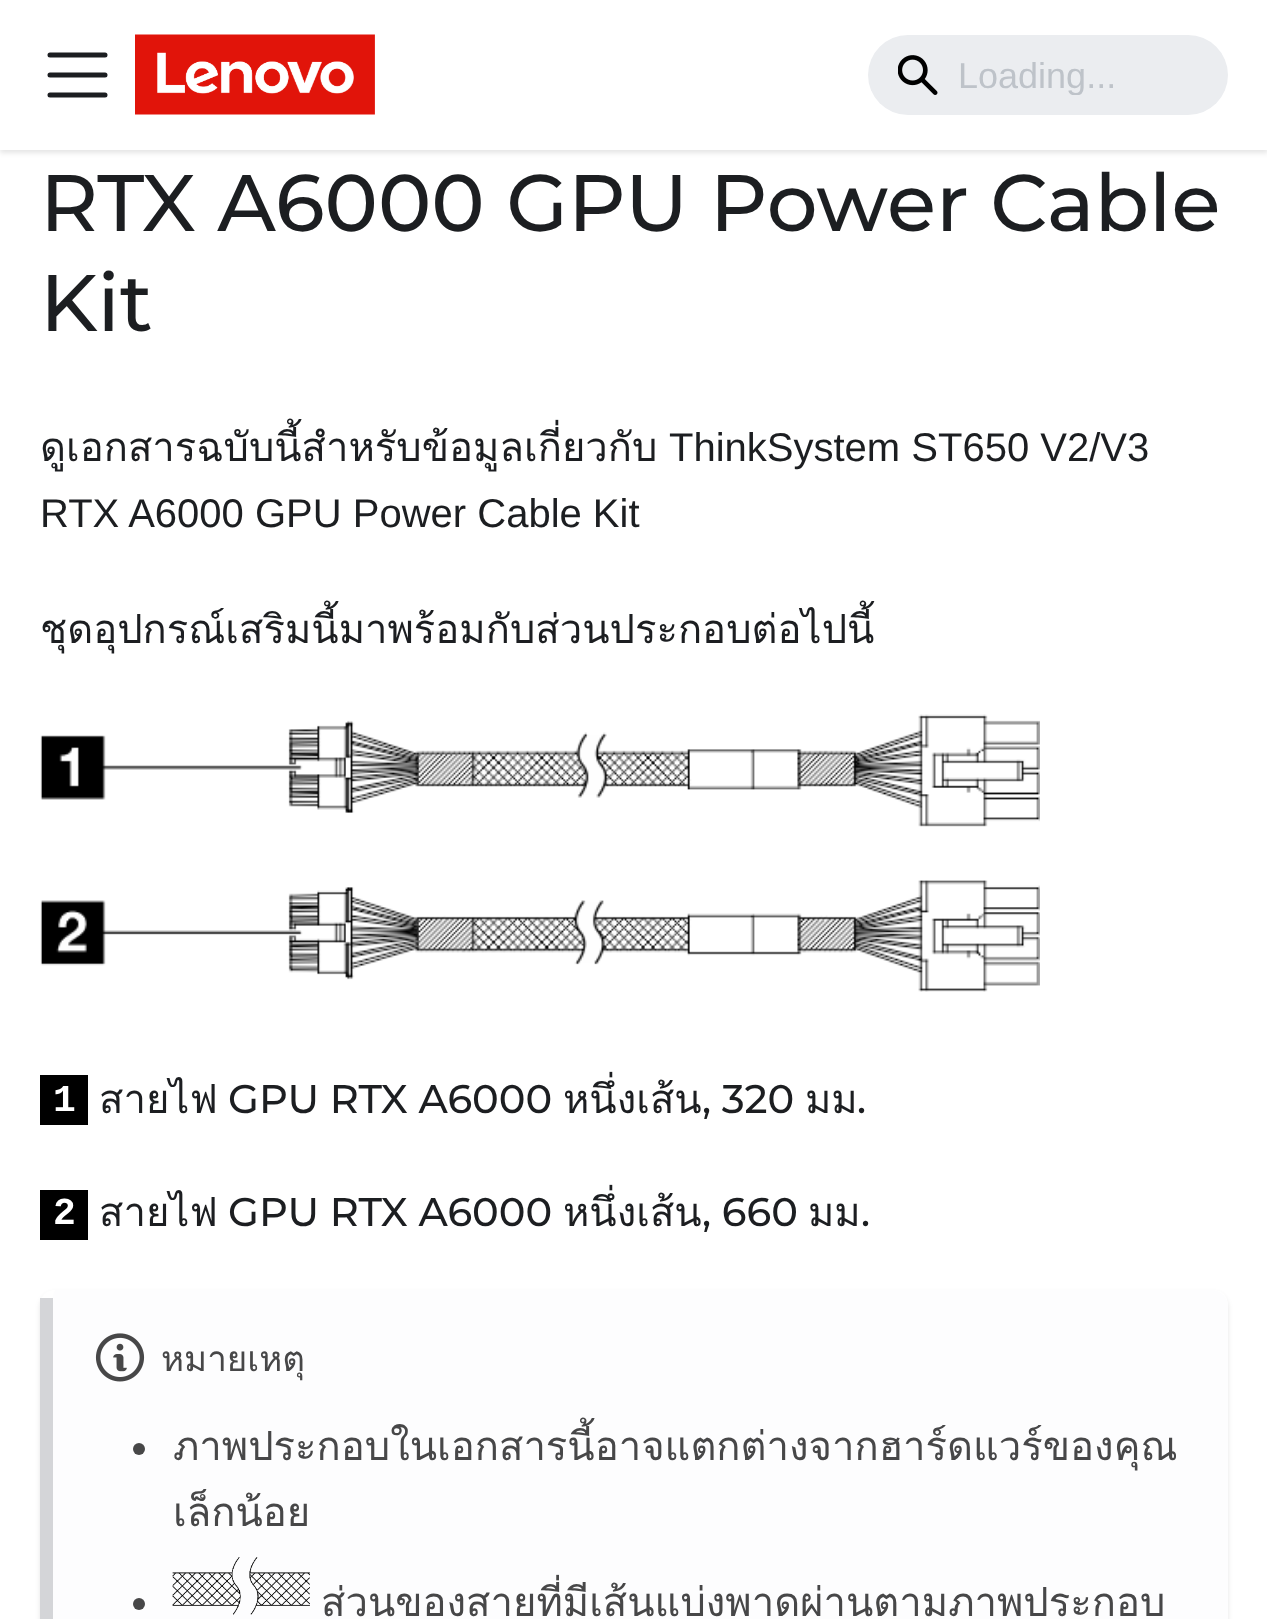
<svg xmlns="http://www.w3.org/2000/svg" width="1267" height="1619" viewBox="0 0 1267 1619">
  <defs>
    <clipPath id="clip1"><path d="M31 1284H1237V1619H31ZM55 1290H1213C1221.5 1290 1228 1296.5 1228 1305V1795C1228 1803.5 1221.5 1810 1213 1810H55C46.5 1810 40 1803.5 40 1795V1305C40 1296.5 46.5 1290 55 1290Z" clip-rule="evenodd"/></clipPath>
    <clipPath id="clip2"><path d="M958 55h215v40H958z"/></clipPath>
  </defs>
  <rect width="100%" height="100%" fill="#fff"/>
  <path d="M0 3h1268v150H0z" fill="#0000001a" filter="blur(2.5px)"/>
  <path d="M0 0h1267v150H0z" fill="#fff"/>
  <path d="M50 55H105M50 75H105M50 95H105" fill="none" stroke="#1c1e21" stroke-width="5" stroke-linecap="round"/>
  <image x="135" y="34" width="240" height="81" href="img/1.png"/>
  <rect x="868" y="35" width="360" height="80" rx="40" fill="#ebedf0"/>
  <image x="898" y="55" width="40" height="40" href="img/2.png"/>
  <image x="40" y="714" width="1000" height="278" href="img/3.png"/>
  <path d="M40 1075h48v50H40z" fill="#000"/>
  <path d="M40 1190h48v50H40z" fill="#000"/>
  <g clip-path="url(#clip1)">
    <rect x="40" y="1293" width="1188" height="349" rx="15" fill="#0000001a" filter="blur(2.5px)"/>
  </g>
  <path d="M56 1290H1212C1220 1290 1228 1297 1228 1306V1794C1228 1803 1220 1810 1212 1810H56C54 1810 52 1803 52 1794V1306C52 1297 54 1290 56 1290Z" fill="#fdfdfe"/>
  <path d="M40 1298h13v321H40z" fill="#d4d5d8"/>
  <image x="95" y="1333" width="50" height="49" href="img/4.png"/>
  <circle cx="139" cy="1449" r="6" fill="#474748"/>
  <circle cx="139" cy="1604" r="6" fill="#474748"/>
  <image x="172" y="1557" width="138" height="58" href="img/5.png"/>
  <g clip-path="url(#clip2)">
    <text x="958" y="88" font-family="Liberation Sans" font-size="36" fill="#bec3c9">Loading...</text>
  </g>
  <g font-family="Montserrat" font-size="80" font-weight="500" fill="#1c1e21">
    <text x="40" y="231">RTX A6000 GPU Power Cable</text>
    <text x="40" y="331">Kit</text>
  </g>
  <text x="40" y="461" font-family="Loma" font-size="40" fill="#1c1e21">ดูเอกสารฉบับนี้สำหรับข้อมูลเกี่ยวกับ</text>
  <g font-family="Liberation Sans" font-size="40" fill="#1c1e21">
    <text x="669" y="461">ThinkSystem ST650 V2/V3</text>
    <text x="40" y="527">RTX A6000 GPU Power Cable Kit</text>
  </g>
  <text x="40" y="643" font-family="Loma" font-size="40" fill="#1c1e21">ชุดอุปกรณ์เสริมนี้มาพร้อมกับส่วนประกอบต่อไปนี้</text>
  <text x="53" y="1111" font-family="Liberation Mono" font-size="38" font-weight="bold" fill="#fff">1</text>
  <text x="99" y="1113" font-family="Loma" font-size="40" fill="#1c1e21">สายไฟ</text>
  <text x="228" y="1113" font-family="Montserrat" font-size="40" font-weight="500" fill="#1c1e21">GPU RTX A6000</text>
  <text x="563" y="1113" font-family="Loma" font-size="40" fill="#1c1e21">หนึ่งเส้น</text>
  <text x="702" y="1113" font-family="Montserrat" font-size="40" font-weight="500" fill="#1c1e21">, 320</text>
  <text x="805" y="1113" font-family="Loma" font-size="40" fill="#1c1e21">มม</text>
  <text x="857" y="1113" font-family="Montserrat" font-size="40" font-weight="500" fill="#1c1e21">.</text>
  <text x="53" y="1224" font-family="Liberation Mono" font-size="38" font-weight="bold" fill="#fff">2</text>
  <text x="99" y="1226" font-family="Loma" font-size="40" fill="#1c1e21">สายไฟ</text>
  <text x="228" y="1226" font-family="Montserrat" font-size="40" font-weight="500" fill="#1c1e21">GPU RTX A6000</text>
  <text x="563" y="1226" font-family="Loma" font-size="40" fill="#1c1e21">หนึ่งเส้น</text>
  <text x="702" y="1226" font-family="Montserrat" font-size="40" font-weight="500" fill="#1c1e21">, 660</text>
  <text x="808" y="1226" font-family="Loma" font-size="40" fill="#1c1e21">มม</text>
  <text x="861" y="1226" font-family="Montserrat" font-size="40" font-weight="500" fill="#1c1e21">.</text>
  <text x="161" y="1371" font-family="Loma" font-size="35" fill="#474748">หมายเหตุ</text>
  <g font-family="Loma" font-size="40" fill="#474748">
    <text x="173" y="1460">ภาพประกอบในเอกสารนี้อาจแตกต่างจากฮาร์ดแวร์ของคุณ</text>
    <text x="173" y="1526">เล็กน้อย</text>
    <text x="321" y="1616">ส่วนของสายที่มีเส้นแบ่งพาดผ่านตามภาพประกอบ</text>
  </g>
</svg>
